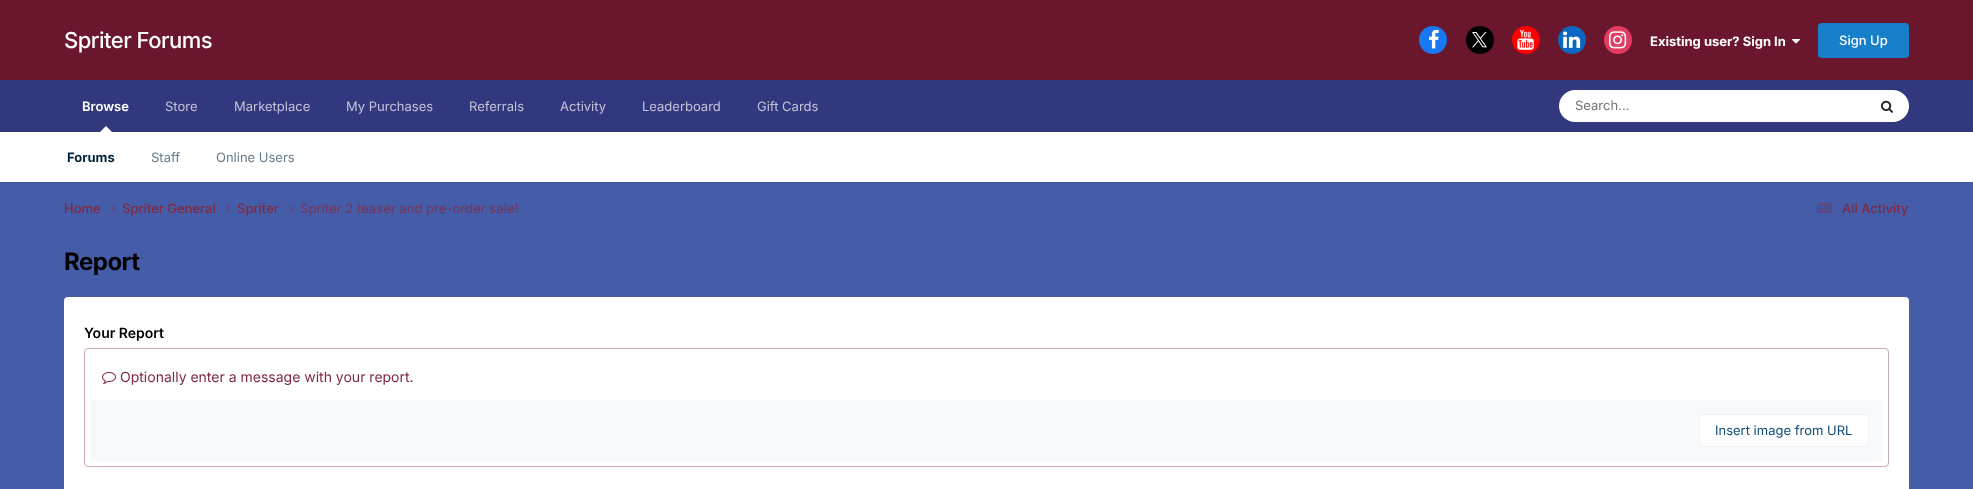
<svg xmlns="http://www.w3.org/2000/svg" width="1973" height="489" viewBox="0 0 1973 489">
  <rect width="100%" height="100%" fill="#455da8"/>
  <path d="M0 0h1973v80H0z" fill="#6a172d"/>
  <circle cx="1433" cy="40" r="14" fill="#1778f2"/>
  <image x="1429" y="29" width="10" height="20" href="img/1.png"/>
  <circle cx="1480" cy="40" r="14" fill="#000"/>
  <image x="1472" y="32" width="15" height="16" href="img/2.png"/>
  <circle cx="1526" cy="40" r="14" fill="#f00"/>
  <image x="1517" y="29" width="17" height="21" href="img/3.png"/>
  <circle cx="1572" cy="40" r="14" fill="#0a66c2"/>
  <image x="1563" y="31" width="18" height="17" href="img/4.png"/>
  <circle cx="1618" cy="40" r="14" fill="#e13d62"/>
  <image x="1609" y="31" width="18" height="18" href="img/5.png"/>
  <image x="1792" y="39" width="8" height="5" href="img/6.png"/>
  <rect x="1818" y="23" width="91" height="35" rx="4" fill="#177ec9"/>
  <path d="M0 80h1973v52H0z" fill="#32387e"/>
  <path d="M0 133h1973v50H0z" fill="#0000001a" filter="blur(1px)"/>
  <path d="M112 132H100L106 126Z" fill="#fff"/>
  <rect x="1559" y="90" width="350" height="32" rx="16" fill="#fff"/>
  <image x="1881" y="100" width="12" height="13" href="img/7.png"/>
  <path d="M0 132h1973v50H0z" fill="#fff"/>
  <image x="111" y="205" width="5" height="8" href="img/8.png"/>
  <image x="226" y="205" width="5" height="8" href="img/8.png"/>
  <image x="289" y="205" width="5" height="8" href="img/8.png"/>
  <image x="1817" y="202" width="15" height="11" href="img/9.png"/>
  <rect x="64" y="297" width="1845" height="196" rx="4" fill="#fff"/>
  <rect x="84.5" y="348.5" width="1804" height="118" rx="3.5" fill="none" stroke="#cca9b3"/>
  <image x="102" y="372" width="14" height="12" href="img/10.png"/>
  <path d="M90 400h1793v61H90z" fill="#f7fafc"/>
  <rect x="1699" y="414" width="170" height="33" rx="4" fill="#fff"/>
  <rect x="1699.5" y="414.5" width="169" height="32" rx="3.5" fill="none" stroke="#0e4c7912"/>
  <text x="64" y="48" font-family="Inter" font-size="22" font-weight="500" letter-spacing="-0.5" fill="#fff">Spriter Forums</text>
  <text x="1650" y="46" font-family="Inter" font-size="13" font-weight="bold" fill="#fff">Existing user? Sign In</text>
  <text x="1839" y="45" font-family="Inter" font-size="13" font-weight="500" fill="#fff">Sign Up</text>
  <text x="82" y="111" font-family="Inter" font-size="13" font-weight="600" fill="#fff">Browse</text>
  <text x="67" y="162" font-family="Inter" font-size="13" font-weight="bold" fill="#00233d">Forums</text>
  <g font-family="Inter" font-size="13" fill="#667b8b">
    <text x="151" y="162">Staff</text>
    <text x="216" y="162">Online Users</text>
  </g>
  <g font-family="Inter" font-size="13" fill="#c2c3d8">
    <text x="165" y="111">Store</text>
    <text x="234" y="111">Marketplace</text>
    <text x="346" y="111">My Purchases</text>
    <text x="469" y="111">Referrals</text>
    <text x="560" y="111">Activity</text>
    <text x="642" y="111">Leaderboard</text>
    <text x="757" y="111">Gift Cards</text>
  </g>
  <text x="1575" y="110" font-family="Inter" font-size="13" fill="#757575">Search...</text>
  <g font-family="Inter" font-size="13" font-weight="500" fill="#7f2941">
    <text x="64" y="213">Home</text>
    <text x="122" y="213">Spriter General</text>
    <text x="237" y="213">Spriter</text>
  </g>
  <text x="300" y="213" font-family="Inter" font-size="13" font-weight="500" fill="#6e3960">Spriter 2 teaser and pre-order sale!</text>
  <text x="1842" y="213" font-family="Inter" font-size="13" font-weight="500" fill="#7f2941">All Activity</text>
  <text x="64" y="270" font-family="Inter" font-size="24" font-weight="bold" letter-spacing="-0.5" fill="#000">Report</text>
  <text x="84" y="338" font-family="Inter" font-size="14" font-weight="600" fill="#000">Your Report</text>
  <text x="120" y="382" font-family="Inter" font-size="14" fill="#7f2941">Optionally enter a message with your report.</text>
  <text x="1715" y="435" font-family="Inter" font-size="13" fill="#0e4c79">Insert image from URL</text>
</svg>
